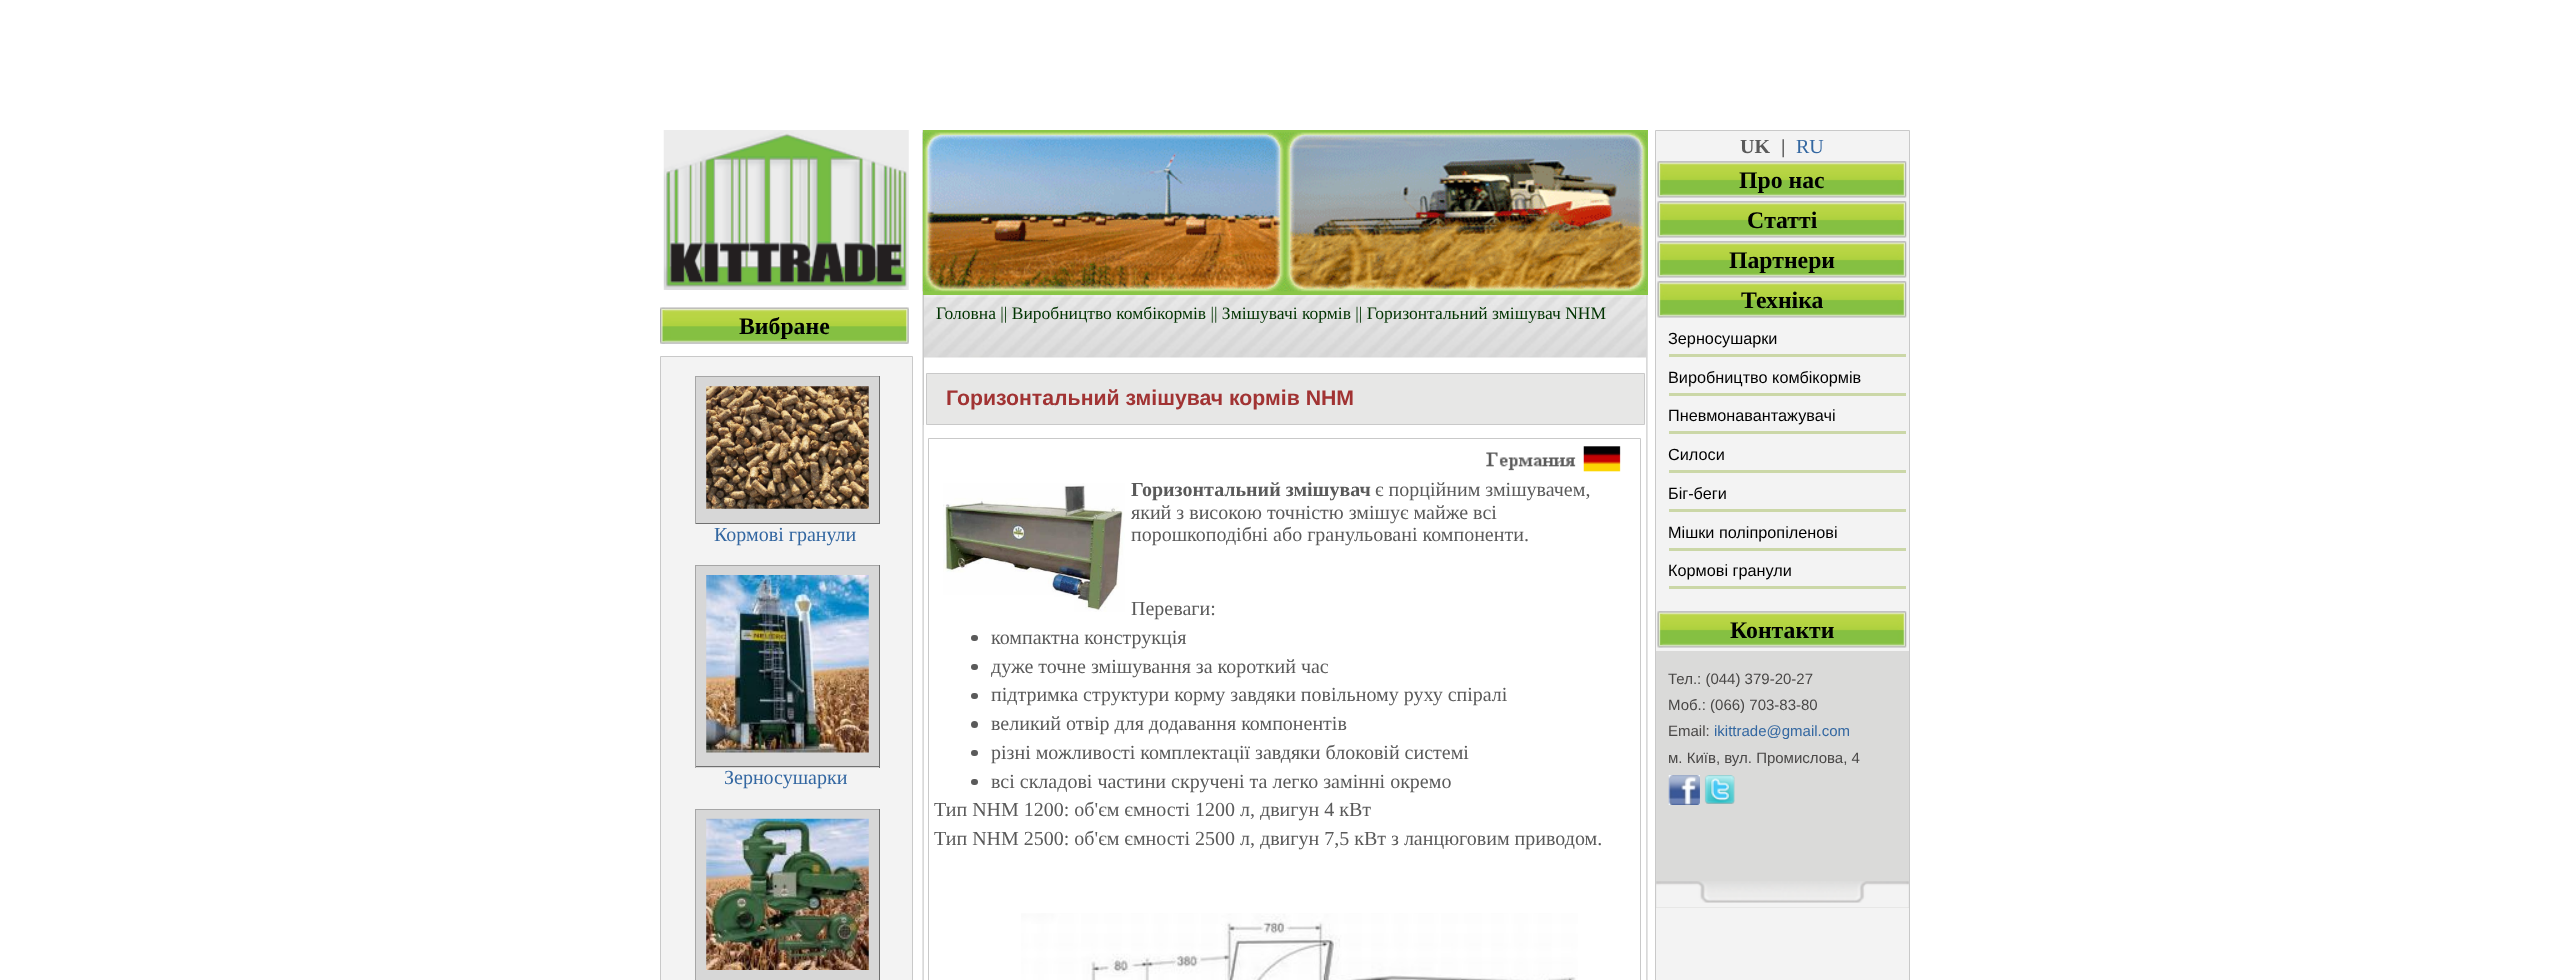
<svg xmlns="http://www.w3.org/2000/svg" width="2568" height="980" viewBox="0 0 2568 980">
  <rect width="100%" height="100%" fill="#fff"/>
  <image x="922" y="130" width="726" height="850" href="img/1.png"/>
  <image x="663" y="130" width="246" height="160" href="img/2.png"/>
  <image x="660" y="307" width="249" height="37" href="img/3.png"/>
  <path d="M660.5 356.5h252v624H660.5z" fill="#f3f3f3" stroke="#c9c9c9"/>
  <path d="M696 377h183v146H696z" fill="#d7d7d7"/>
  <path d="M695 376h185v1H695z" fill="#a6a6a6"/>
  <path d="M879 376h1v148H879z" fill="#6f6f6f"/>
  <path d="M695 523h185v1H695z" fill="#6f6f6f"/>
  <path d="M695 376h1v148H695z" fill="#a6a6a6"/>
  <image x="706" y="386" width="163" height="123" href="img/4.png"/>
  <path d="M696 566h183v202H696z" fill="#d7d7d7"/>
  <path d="M695 565h185v1H695z" fill="#a6a6a6"/>
  <path d="M879 565h1v203H879z" fill="#6f6f6f"/>
  <path d="M695 766h185v1H695z" fill="#6f6f6f"/>
  <path d="M695 565h1v203H695z" fill="#a6a6a6"/>
  <image x="706" y="575" width="163" height="178" href="img/5.png"/>
  <path d="M696 810h183v170H696z" fill="#d7d7d7"/>
  <path d="M695 809h185v1H695z" fill="#a6a6a6"/>
  <path d="M879 809h1v171H879z" fill="#6f6f6f"/>
  <path d="M695 809h1v171H695z" fill="#a6a6a6"/>
  <image x="706" y="818" width="163" height="152" href="img/6.png"/>
  <path d="M923 130h725v165H923z" fill="#8ac647"/>
  <image x="922" y="132" width="363" height="160" href="img/7.png"/>
  <image x="1285" y="132" width="362" height="160" href="img/8.png"/>
  <image x="924" y="295" width="723" height="63" href="img/9.png"/>
  <path d="M923 295h1v130H923z" fill="#c9c9c9"/>
  <path d="M926.5 373.5h718v51H926.5z" fill="#e7e7e6" stroke="#c9c9c9"/>
  <image x="1486" y="446" width="135" height="26" href="img/10.png"/>
  <path d="M928.5 438.5h712v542H928.5z" fill="none" stroke="#c9c9c9"/>
  <image x="943" y="483" width="182" height="129" href="img/11.png"/>
  <rect x="971" y="635" width="7" height="6" rx="3" fill="#5a5a5a"/>
  <rect x="971" y="664" width="7" height="6" rx="3" fill="#5a5a5a"/>
  <rect x="971" y="693" width="7" height="6" rx="3" fill="#5a5a5a"/>
  <circle cx="974.5" cy="724.5" r="3.5" fill="#5a5a5a"/>
  <rect x="971" y="750" width="7" height="6" rx="3" fill="#5a5a5a"/>
  <rect x="971" y="779" width="7" height="6" rx="3" fill="#5a5a5a"/>
  <image x="1021" y="913" width="557" height="67" href="img/12.png"/>
  <path d="M1655.5 130.5h254v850H1655.5z" fill="#f3f3f3" stroke="#c9c9c9"/>
  <image x="1657" y="161" width="250" height="37" href="img/13.png"/>
  <image x="1657" y="201" width="250" height="37" href="img/13.png"/>
  <image x="1657" y="241" width="250" height="37" href="img/13.png"/>
  <image x="1657" y="281" width="250" height="37" href="img/14.png"/>
  <path d="M1669 354h237v3H1669z" fill="#cbd7a7"/>
  <path d="M1669 393h237v3H1669z" fill="#cbd7a7"/>
  <path d="M1669 431h237v3H1669z" fill="#cbd7a7"/>
  <path d="M1669 470h237v3H1669z" fill="#cbd7a7"/>
  <path d="M1669 509h237v3H1669z" fill="#cbd7a7"/>
  <path d="M1669 548h237v3H1669z" fill="#cbd7a7"/>
  <path d="M1669 586h237v3H1669z" fill="#cbd7a7"/>
  <image x="1657" y="611" width="250" height="37" href="img/13.png"/>
  <path d="M1656 651h253v257H1656z" fill="#dadad9"/>
  <image x="1656" y="881" width="253" height="27" href="img/15.png"/>
  <image x="1668" y="775" width="32" height="30" href="img/16.png"/>
  <image x="1704" y="775" width="31" height="29" href="img/17.png"/>
  <text x="739" y="334" font-family="Liberation Serif" font-size="23.75" font-weight="bold" fill="#000">Вибране</text>
  <g font-family="Liberation Serif" font-size="20" fill="#3367a1">
    <text x="714" y="541">Кормові гранули</text>
    <text x="724" y="784">Зерносушарки</text>
  </g>
  <text x="936" y="319" font-family="Liberation Serif" font-size="17.5" fill="#030">Головна || Виробництво комбікормів || Змішувачі кормів || Горизонтальний змішувач NHM</text>
  <text x="946" y="405" font-family="Liberation Sans" font-size="21.25" font-weight="bold" fill="#a13333">Горизонтальний змішувач кормів NHM</text>
  <text x="1131" y="496" font-family="Liberation Serif" font-size="20" font-weight="bold" fill="#5a5a5a">Горизонтальний змішувач</text>
  <g font-family="Liberation Serif" font-size="20" fill="#5a5a5a">
    <text x="1375" y="496">є порційним змішувачем,</text>
    <text x="1131" y="519">який з високою точністю змішує майже всі</text>
    <text x="1131" y="541">порошкоподібні або гранульовані компоненти.</text>
    <text x="1131" y="615">Переваги:</text>
    <text x="991" y="644">компактна конструкція</text>
    <text x="991" y="673">дуже точне змішування за короткий час</text>
    <text x="991" y="701">підтримка структури корму завдяки повільному руху спіралі</text>
    <text x="991" y="730">великий отвір для додавання компонентів</text>
    <text x="991" y="759">різні можливості комплектації завдяки блоковій системі</text>
    <text x="991" y="788">всі складові частини скручені та легко замінні окремо</text>
    <text x="934" y="816">Тип NHM 1200: об'єм ємності 1200 л, двигун 4 кВт</text>
    <text x="934" y="845">Тип NHM 2500: об'єм ємності 2500 л, двигун 7,5 кВт з ланцюговим приводом.</text>
  </g>
  <g font-family="Liberation Serif" font-size="20" font-weight="bold" fill="#5a5a5a">
    <text x="1740" y="153">UK</text>
    <text x="1781" y="153">|</text>
  </g>
  <text x="1796" y="153" font-family="Liberation Serif" font-size="20" fill="#3367a1">RU</text>
  <g font-family="Liberation Serif" font-size="23.75" font-weight="bold" fill="#000">
    <text x="1739" y="188">Про нас</text>
    <text x="1747" y="228">Cтатті</text>
    <text x="1729" y="268">Партнери</text>
    <text x="1741" y="308">Техніка</text>
  </g>
  <g font-family="Liberation Sans" font-size="16.25" fill="#000">
    <text x="1668" y="344">Зерносушарки</text>
    <text x="1668" y="383">Виробництво комбікормів</text>
    <text x="1668" y="421">Пневмонавантажувачі</text>
    <text x="1668" y="460">Силоси</text>
    <text x="1668" y="499">Біг-беги</text>
    <text x="1668" y="538">Мішки поліпропіленові</text>
    <text x="1668" y="576">Кормові гранули</text>
  </g>
  <text x="1730" y="638" font-family="Liberation Serif" font-size="23.75" font-weight="bold" fill="#000">Контакти</text>
  <g font-family="Liberation Sans" font-size="15" fill="#494746">
    <text x="1668" y="684">Тел.: (044) 379-20-27</text>
    <text x="1668" y="710">Моб.: (066) 703-83-80</text>
    <text x="1668" y="736">Email:</text>
  </g>
  <text x="1714" y="736" font-family="Liberation Sans" font-size="15" fill="#3367a1">ikittrade@gmail.com</text>
  <text x="1668" y="763" font-family="Liberation Sans" font-size="15" fill="#494746">м. Київ, вул. Промислова, 4</text>
</svg>
